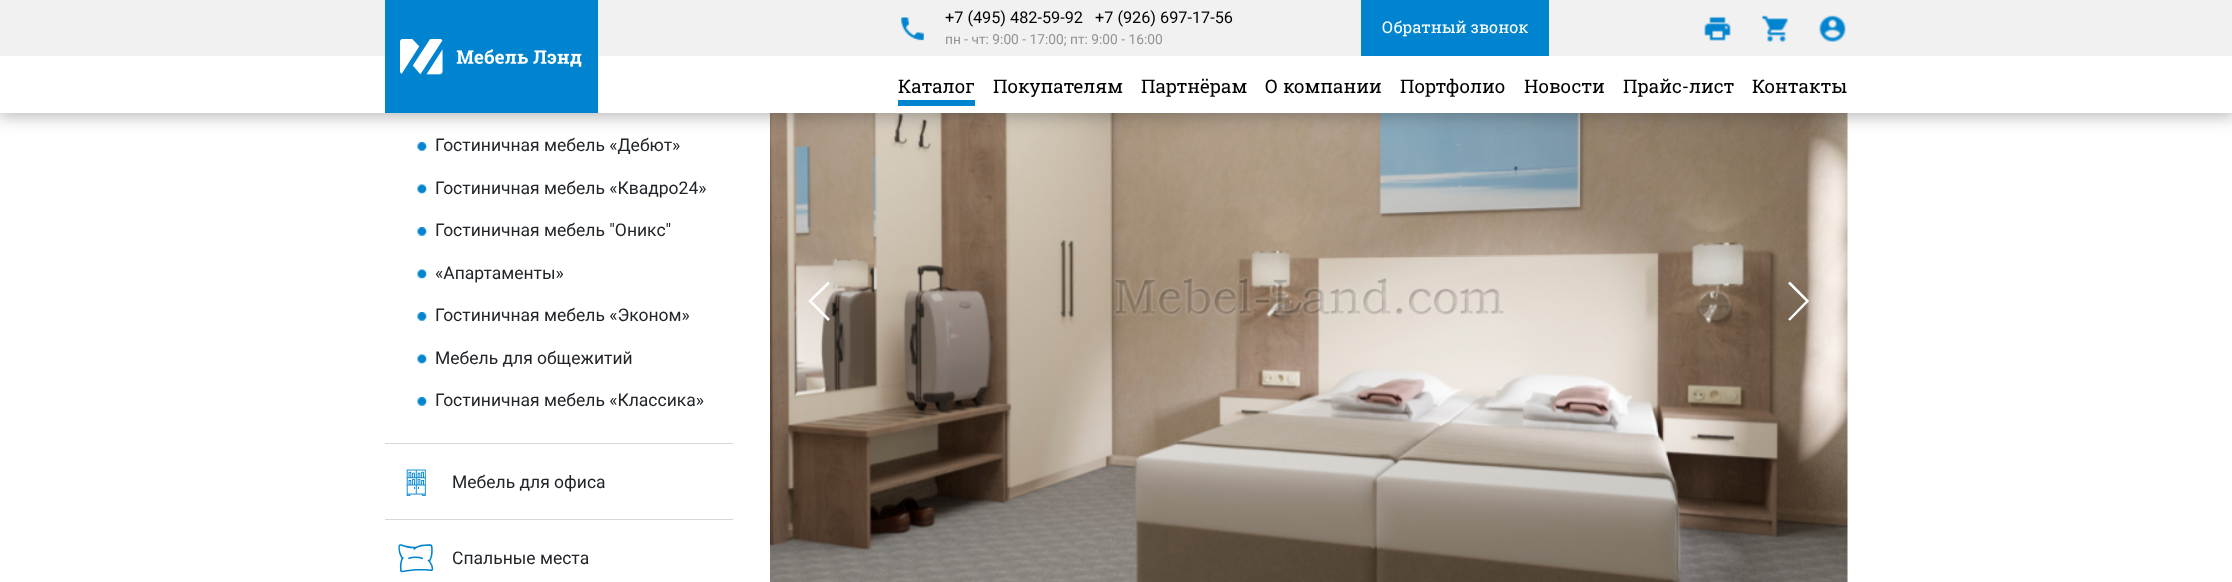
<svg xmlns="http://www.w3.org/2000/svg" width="2232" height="582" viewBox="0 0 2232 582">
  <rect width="100%" height="100%" fill="#fff"/>
  <image x="417" y="142" width="10" height="9" href="img/6.png"/>
  <image x="770" y="113" width="1078" height="469" href="img/11.png"/>
  <path d="M-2 -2h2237v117H-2z" fill="#33333366" filter="blur(9px)"/>
  <path d="M0 56h2232v57H0z" fill="#fff"/>
  <path d="M0 0h2232v56H0z" fill="#f1f1f1"/>
  <path d="M385 0h213v113H385z" fill="#0084cf"/>
  <image x="400" y="39" width="182" height="36" href="img/1.png"/>
  <image x="901" y="17" width="23" height="24" href="img/2.png"/>
  <path d="M1361 0h188v56H1361z" fill="#0084cf"/>
  <image x="1704" y="16" width="27" height="25" href="img/3.png"/>
  <image x="1761" y="15" width="28" height="27" href="img/4.png"/>
  <image x="1819" y="15" width="27" height="27" href="img/5.png"/>
  <path d="M898 100h77v6H898z" fill="#0084cf"/>
  <path d="M385 443h348v1H385z" fill="#d8d8d8"/>
  <image x="417" y="184" width="10" height="10" href="img/7.png"/>
  <image x="417" y="227" width="10" height="9" href="img/6.png"/>
  <image x="417" y="269" width="10" height="10" href="img/7.png"/>
  <image x="417" y="312" width="10" height="9" href="img/6.png"/>
  <image x="417" y="354" width="10" height="10" href="img/7.png"/>
  <image x="417" y="397" width="10" height="9" href="img/8.png"/>
  <path d="M385 519h348v1H385z" fill="#d8d8d8"/>
  <image x="406" y="469" width="20" height="27" href="img/9.png"/>
  <image x="398" y="544" width="36" height="29" href="img/10.png"/>
  <path d="M829 282.5L810 301L829 320" fill="none" stroke="#fff" stroke-width="2.5"/>
  <path d="M1789 282.5L1807.5 301L1789 320" fill="none" stroke="#fff" stroke-width="2.5"/>
  <g font-family="Roboto" font-size="16.25" fill="#000">
    <text x="945" y="23">+7 (495) 482-59-92</text>
    <text x="1095" y="23">+7 (926) 697-17-56</text>
  </g>
  <text x="945" y="44" font-family="Roboto" font-size="13.75" fill="#939393">пн - чт: 9:00 - 17:00; пт: 9:00 - 16:00</text>
  <text x="1382" y="33" font-family="Roboto Slab" font-size="16.25" fill="#fff">Обратный звонок</text>
  <g font-family="Roboto Slab" font-size="18.75" fill="#000">
    <text x="898" y="93">Каталог</text>
    <text x="993" y="93">Покупателям</text>
    <text x="1141" y="93">Партнёрам</text>
    <text x="1265" y="93">О компании</text>
    <text x="1400" y="93">Портфолио</text>
    <text x="1524" y="93">Новости</text>
    <text x="1623" y="93">Прайс-лист</text>
    <text x="1752" y="93">Контакты</text>
  </g>
  <g font-family="Roboto" font-size="17.5" fill="#212529">
    <text x="435" y="151">Гостиничная мебель «Дебют»</text>
    <text x="435" y="194">Гостиничная мебель «Квадро24»</text>
    <text x="435" y="236">Гостиничная мебель "Оникс"</text>
    <text x="435" y="279">«Апартаменты»</text>
    <text x="435" y="321">Гостиничная мебель «Эконом»</text>
    <text x="435" y="364">Мебель для общежитий</text>
    <text x="435" y="406">Гостиничная мебель «Классика»</text>
    <text x="452" y="488">Мебель для офиса</text>
    <text x="452" y="564">Спальные места</text>
  </g>
</svg>
